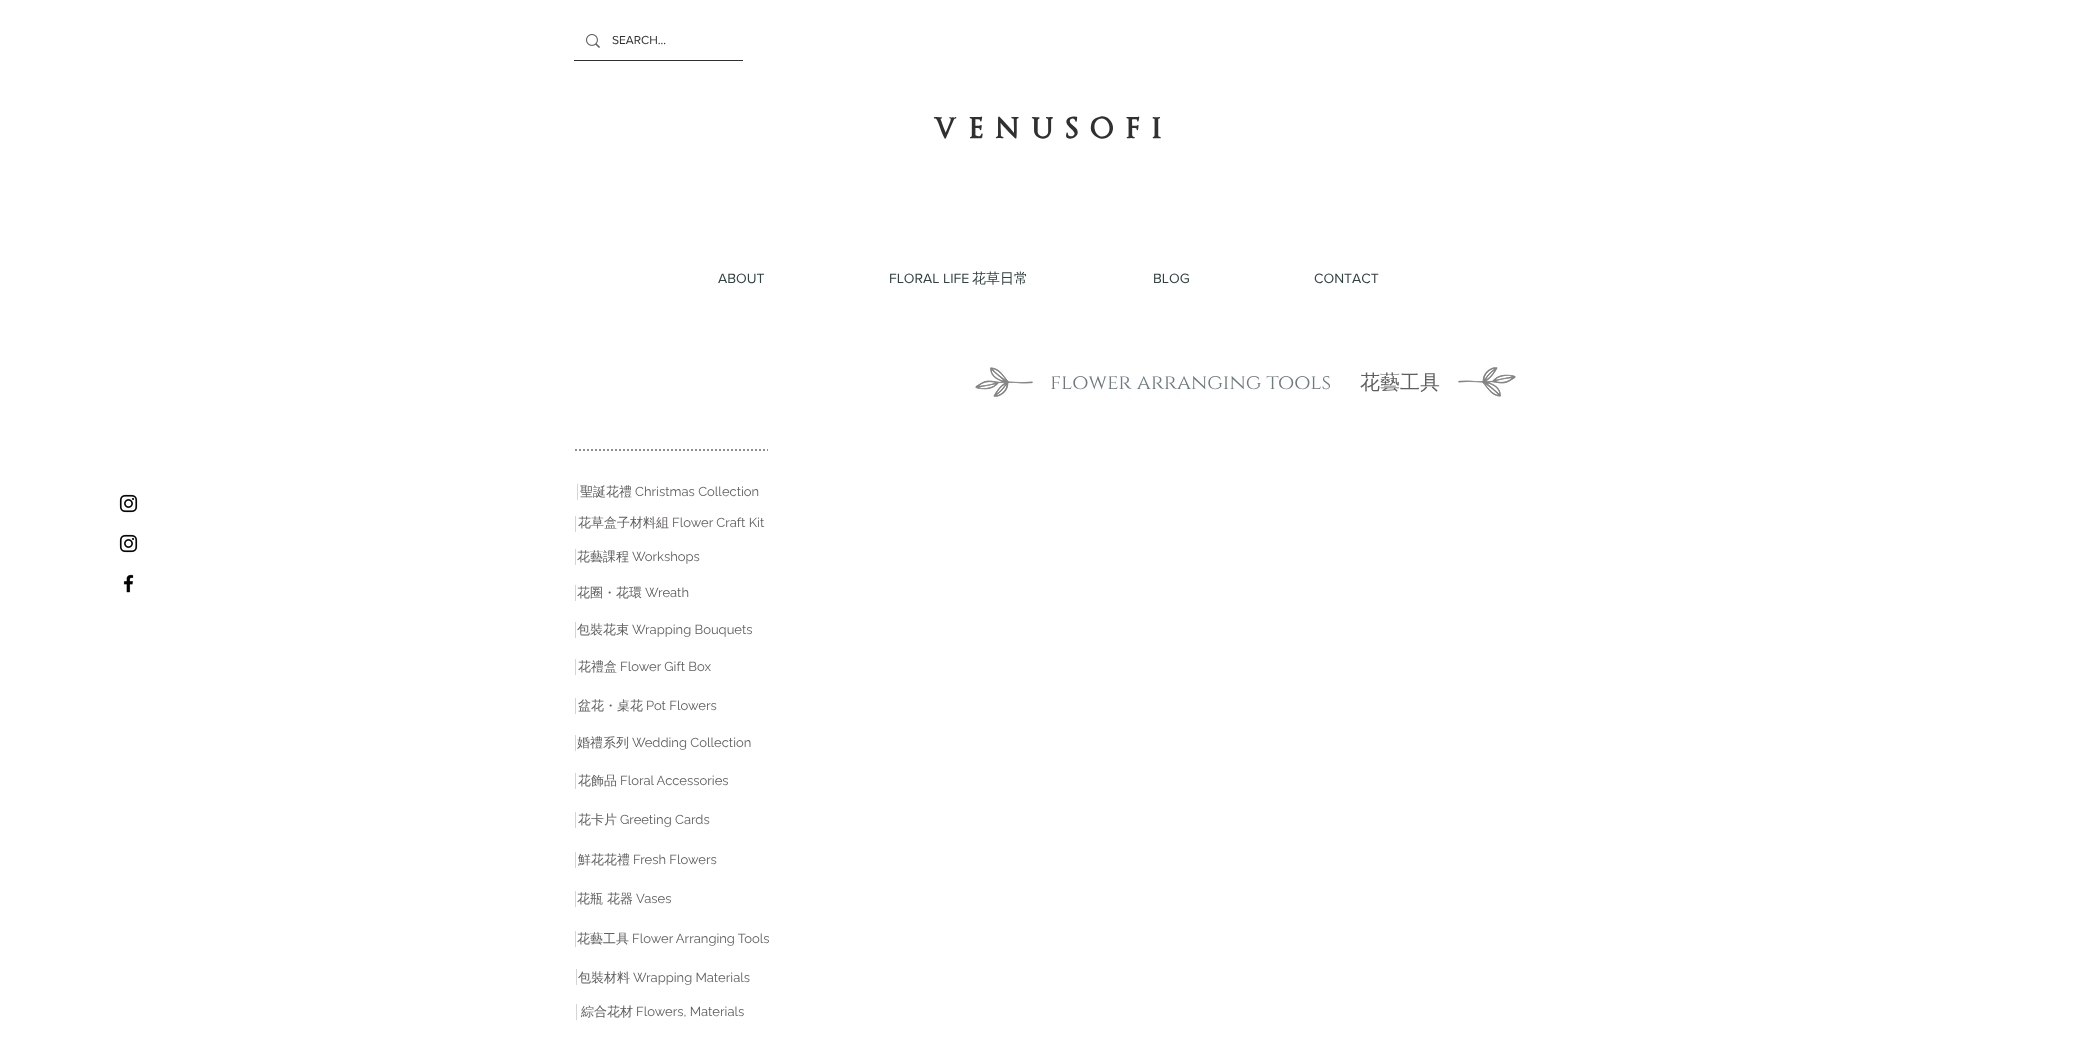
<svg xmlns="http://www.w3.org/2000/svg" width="2097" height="1050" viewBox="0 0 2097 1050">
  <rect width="100%" height="100%" fill="#fff"/>
  <path d="M574 60h169v1H574z" fill="#303030"/>
  <image x="586" y="34" width="14" height="14" href="img/1.png"/>
  <image x="119" y="494" width="19" height="19" href="img/2.png"/>
  <image x="119" y="534" width="19" height="19" href="img/2.png"/>
  <image x="123" y="574" width="11" height="19" href="img/3.png"/>
  <image x="975" y="367" width="58" height="30" href="img/4.png"/>
  <image x="1458" y="367" width="58" height="30" href="img/5.png"/>
  <path d="M575 450H768" fill="none" stroke="#909090" stroke-width="2" stroke-dasharray="2 2"/>
  <path d="M577 484h1v16H577z" fill="#d4d4d4"/>
  <path d="M575 516h1v16H575z" fill="#d4d4d4"/>
  <path d="M575 549h1v16H575z" fill="#d4d4d4"/>
  <path d="M575 585h1v16H575z" fill="#d4d4d4"/>
  <path d="M575 622h1v16H575z" fill="#d4d4d4"/>
  <path d="M575 659h1v16H575z" fill="#d4d4d4"/>
  <path d="M575 698h1v16H575z" fill="#d4d4d4"/>
  <path d="M575 735h1v16H575z" fill="#d4d4d4"/>
  <path d="M575 773h1v16H575z" fill="#d4d4d4"/>
  <path d="M575 812h1v16H575z" fill="#d4d4d4"/>
  <path d="M575 852h1v16H575z" fill="#d4d4d4"/>
  <path d="M575 891h1v16H575z" fill="#d4d4d4"/>
  <path d="M575 931h1v16H575z" fill="#d4d4d4"/>
  <path d="M576 969h1v16H576z" fill="#d4d4d4"/>
  <path d="M576 1004h1v16H576z" fill="#d4d4d4"/>
  <text x="612" y="44" font-family="'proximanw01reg'" font-size="12" fill="#303030">SEARCH...</text>
  <text x="933" y="141" font-family="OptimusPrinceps" font-size="37" font-weight="bold" letter-spacing="1.8" fill="#303030">v e n u s o f i</text>
  <g font-family="'proximanw01reg'" font-size="14" fill="#324241">
    <text x="718" y="283">ABOUT</text>
    <text x="889" y="283">FLORAL LIFE</text>
  </g>
  <text x="972" y="283" font-family="WenQuanYi Zen Hei" font-size="14" font-weight="500" fill="#324241">花草日常</text>
  <g font-family="'proximanw01reg'" font-size="14" fill="#324241">
    <text x="1153" y="283">BLOG</text>
    <text x="1314" y="283">CONTACT</text>
  </g>
  <text x="1050" y="389" font-family="Cinzel" font-size="21" fill="#6d7b81">flower arranging tools</text>
  <text x="1360" y="389" font-family="WenQuanYi Zen Hei" font-size="20" font-weight="500" fill="#605e5e">花藝工具</text>
  <text x="580" y="496" font-family="WenQuanYi Zen Hei" font-size="13" font-weight="500" fill="#605e5e">聖誕花禮</text>
  <text x="635" y="496" font-family="Raleway" font-size="13" fill="#605e5e">Christmas Collection</text>
  <text x="578" y="527" font-family="WenQuanYi Zen Hei" font-size="13" font-weight="500" fill="#605e5e">花草盒子材料組</text>
  <text x="672" y="527" font-family="Raleway" font-size="13" fill="#605e5e">Flower Craft Kit</text>
  <text x="577" y="561" font-family="WenQuanYi Zen Hei" font-size="13" font-weight="500" fill="#605e5e">花藝課程</text>
  <text x="632" y="561" font-family="Raleway" font-size="13" fill="#605e5e">Workshops</text>
  <text x="577" y="597" font-family="WenQuanYi Zen Hei" font-size="13" font-weight="500" fill="#605e5e">花圈・花環</text>
  <text x="645" y="597" font-family="Raleway" font-size="13" fill="#605e5e">Wreath</text>
  <text x="577" y="634" font-family="WenQuanYi Zen Hei" font-size="13" font-weight="500" fill="#605e5e">包裝花束</text>
  <text x="632" y="634" font-family="Raleway" font-size="13" fill="#605e5e">Wrapping Bouquets</text>
  <text x="578" y="671" font-family="WenQuanYi Zen Hei" font-size="13" font-weight="500" fill="#605e5e">花禮盒</text>
  <text x="620" y="671" font-family="Raleway" font-size="13" fill="#605e5e">Flower Gift Box</text>
  <text x="578" y="710" font-family="WenQuanYi Zen Hei" font-size="13" font-weight="500" fill="#605e5e">盆花・桌花</text>
  <text x="646" y="710" font-family="Raleway" font-size="13" fill="#605e5e">Pot Flowers</text>
  <text x="577" y="747" font-family="WenQuanYi Zen Hei" font-size="13" font-weight="500" fill="#605e5e">婚禮系列</text>
  <text x="632" y="747" font-family="Raleway" font-size="13" fill="#605e5e">Wedding Collection</text>
  <text x="578" y="785" font-family="WenQuanYi Zen Hei" font-size="13" font-weight="500" fill="#605e5e">花飾品</text>
  <text x="620" y="785" font-family="Raleway" font-size="13" fill="#605e5e">Floral Accessories</text>
  <text x="578" y="824" font-family="WenQuanYi Zen Hei" font-size="13" font-weight="500" fill="#605e5e">花卡片</text>
  <text x="620" y="824" font-family="Raleway" font-size="13" fill="#605e5e">Greeting Cards</text>
  <text x="578" y="864" font-family="WenQuanYi Zen Hei" font-size="13" font-weight="500" fill="#605e5e">鮮花花禮</text>
  <text x="633" y="864" font-family="Raleway" font-size="13" fill="#605e5e">Fresh Flowers</text>
  <text x="577" y="903" font-family="WenQuanYi Zen Hei" font-size="13" font-weight="500" fill="#605e5e">花瓶 花器</text>
  <text x="636" y="903" font-family="Raleway" font-size="13" fill="#605e5e">Vases</text>
  <text x="577" y="943" font-family="WenQuanYi Zen Hei" font-size="13" font-weight="500" fill="#605e5e">花藝工具</text>
  <text x="632" y="943" font-family="Raleway" font-size="13" fill="#605e5e">Flower Arranging Tools</text>
  <text x="578" y="982" font-family="WenQuanYi Zen Hei" font-size="13" font-weight="500" fill="#605e5e">包裝材料</text>
  <text x="633" y="982" font-family="Raleway" font-size="13" fill="#605e5e">Wrapping Materials</text>
  <text x="581" y="1016" font-family="WenQuanYi Zen Hei" font-size="13" font-weight="500" fill="#605e5e">綜合花材</text>
  <text x="636" y="1016" font-family="Raleway" font-size="13" fill="#605e5e">Flowers, Materials</text>
</svg>
